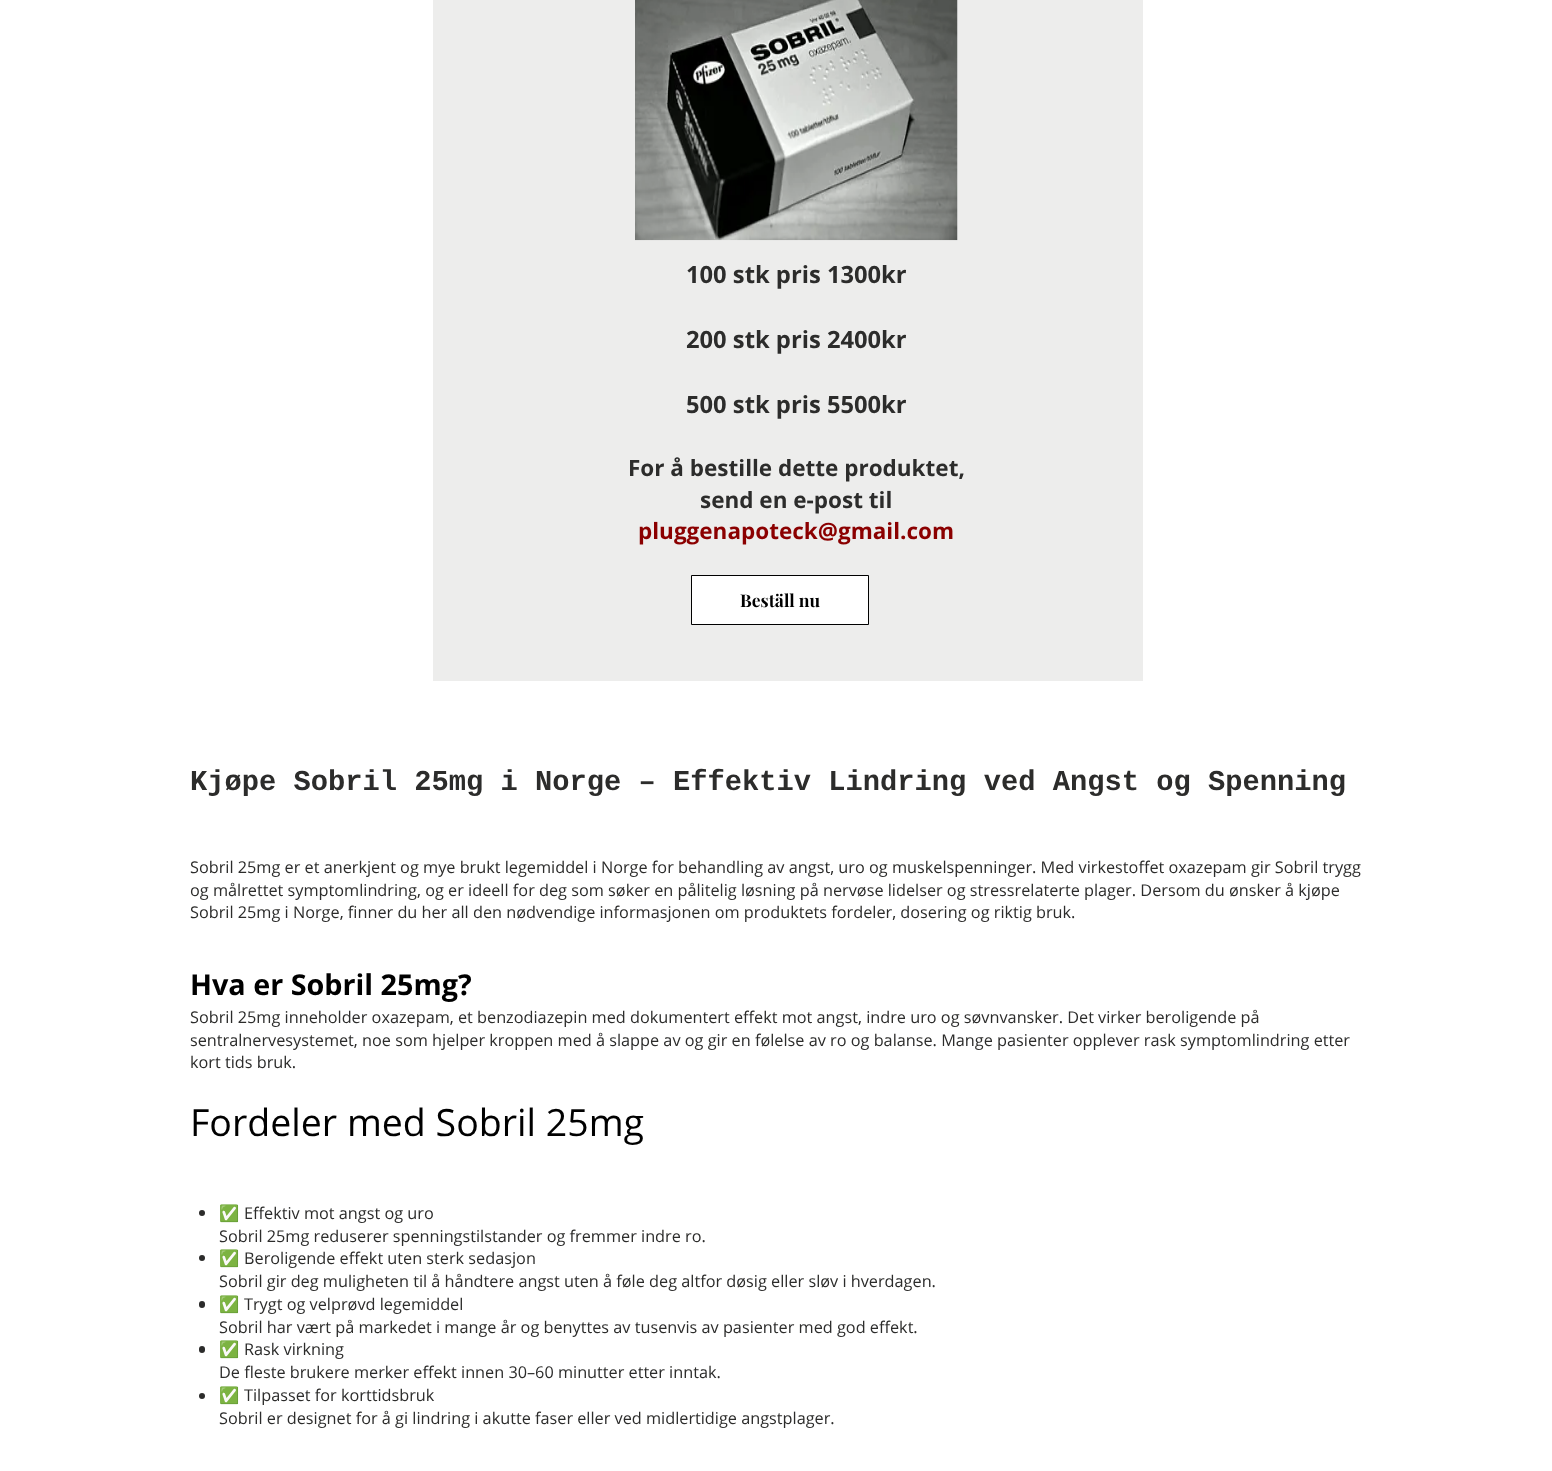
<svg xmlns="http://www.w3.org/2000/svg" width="1552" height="1471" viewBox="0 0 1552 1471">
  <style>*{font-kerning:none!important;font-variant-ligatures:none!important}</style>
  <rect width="100%" height="100%" fill="#fff"/>
  <path d="M433 0h710v681H433z" fill="#ededec"/>
  <image x="635" y="0" width="323" height="241" href="img/1.png"/>
  <path d="M691.5 575.5h177v49H691.5z" fill="#fff" stroke="#000"/>
  <circle cx="202" cy="1213" r="3" fill="#2c2c2b"/>
  <circle cx="202" cy="1258" r="3" fill="#2c2c2b"/>
  <rect x="199" y="1301" width="6" height="7" rx="3" fill="#2c2c2b"/>
  <rect x="199" y="1346" width="6" height="7" rx="3" fill="#2c2c2b"/>
  <circle cx="202" cy="1396" r="3" fill="#2c2c2b"/>
  <g font-family="Open Sans" font-size="23.75" font-weight="bold" fill="#2c2c2b">
    <text x="686" y="283">100 stk pris 1300kr</text>
    <text x="686" y="348">200 stk pris 2400kr</text>
    <text x="686" y="413">500 stk pris 5500kr</text>
  </g>
  <g font-family="Open Sans" font-size="22.5" font-weight="bold" fill="#2c2c2b">
    <text x="628" y="476">For å bestille dette produktet,</text>
    <text x="700" y="508">send en e-post til</text>
  </g>
  <text x="638" y="539" font-family="Open Sans" font-size="22.5" font-weight="bold" fill="#8b0000">pluggenapoteck@gmail.com</text>
  <text x="740" y="607" font-family="Playfair Display" font-size="17.5" font-weight="bold" fill="#000">Beställ nu</text>
  <text x="190" y="790" font-family="Liberation Mono" font-size="28.75" font-weight="bold" fill="#2c2c2b">Kjøpe Sobril 25mg i Norge – Effektiv Lindring ved Angst og Spenning</text>
  <g font-family="Open Sans" font-size="16.25" fill="#2c2c2b">
    <text x="190" y="873">Sobril 25mg er et anerkjent og mye brukt legemiddel i Norge for behandling av angst, uro og muskelspenninger. Med virkestoffet oxazepam gir Sobril trygg</text>
    <text x="190" y="896">og målrettet symptomlindring, og er ideell for deg som søker en pålitelig løsning på nervøse lidelser og stressrelaterte plager. Dersom du ønsker å kjøpe</text>
    <text x="190" y="918">Sobril 25mg i Norge, finner du her all den nødvendige informasjonen om produktets fordeler, dosering og riktig bruk.</text>
  </g>
  <text x="190" y="995" font-family="Open Sans" font-size="28.75" font-weight="bold" fill="#000">Hva er Sobril 25mg?</text>
  <g font-family="Open Sans" font-size="16.25" fill="#2c2c2b">
    <text x="190" y="1023">Sobril 25mg inneholder oxazepam, et benzodiazepin med dokumentert effekt mot angst, indre uro og søvnvansker. Det virker beroligende på</text>
    <text x="190" y="1046">sentralnervesystemet, noe som hjelper kroppen med å slappe av og gir en følelse av ro og balanse. Mange pasienter opplever rask symptomlindring etter</text>
    <text x="190" y="1068">kort tids bruk.</text>
  </g>
  <text x="190" y="1136" font-family="Open Sans" font-size="37.5" fill="#000">Fordeler med Sobril 25mg</text>
  <text x="219" y="1219" font-family="Noto Color Emoji" font-size="16.25" fill="#2c2c2b">✅</text>
  <g font-family="Open Sans" font-size="16.25" fill="#2c2c2b">
    <text x="244" y="1219">Effektiv mot angst og uro</text>
    <text x="219" y="1242">Sobril 25mg reduserer spenningstilstander og fremmer indre ro.</text>
  </g>
  <text x="219" y="1264" font-family="Noto Color Emoji" font-size="16.25" fill="#2c2c2b">✅</text>
  <g font-family="Open Sans" font-size="16.25" fill="#2c2c2b">
    <text x="244" y="1264">Beroligende effekt uten sterk sedasjon</text>
    <text x="219" y="1287">Sobril gir deg muligheten til å håndtere angst uten å føle deg altfor døsig eller sløv i hverdagen.</text>
  </g>
  <text x="219" y="1310" font-family="Noto Color Emoji" font-size="16.25" fill="#2c2c2b">✅</text>
  <g font-family="Open Sans" font-size="16.25" fill="#2c2c2b">
    <text x="244" y="1310">Trygt og velprøvd legemiddel</text>
    <text x="219" y="1333">Sobril har vært på markedet i mange år og benyttes av tusenvis av pasienter med god effekt.</text>
  </g>
  <text x="219" y="1355" font-family="Noto Color Emoji" font-size="16.25" fill="#2c2c2b">✅</text>
  <g font-family="Open Sans" font-size="16.25" fill="#2c2c2b">
    <text x="244" y="1355">Rask virkning</text>
    <text x="219" y="1378">De fleste brukere merker effekt innen 30–60 minutter etter inntak.</text>
  </g>
  <text x="219" y="1401" font-family="Noto Color Emoji" font-size="16.25" fill="#2c2c2b">✅</text>
  <g font-family="Open Sans" font-size="16.25" fill="#2c2c2b">
    <text x="244" y="1401">Tilpasset for korttidsbruk</text>
    <text x="219" y="1424">Sobril er designet for å gi lindring i akutte faser eller ved midlertidige angstplager.</text>
  </g>
</svg>
